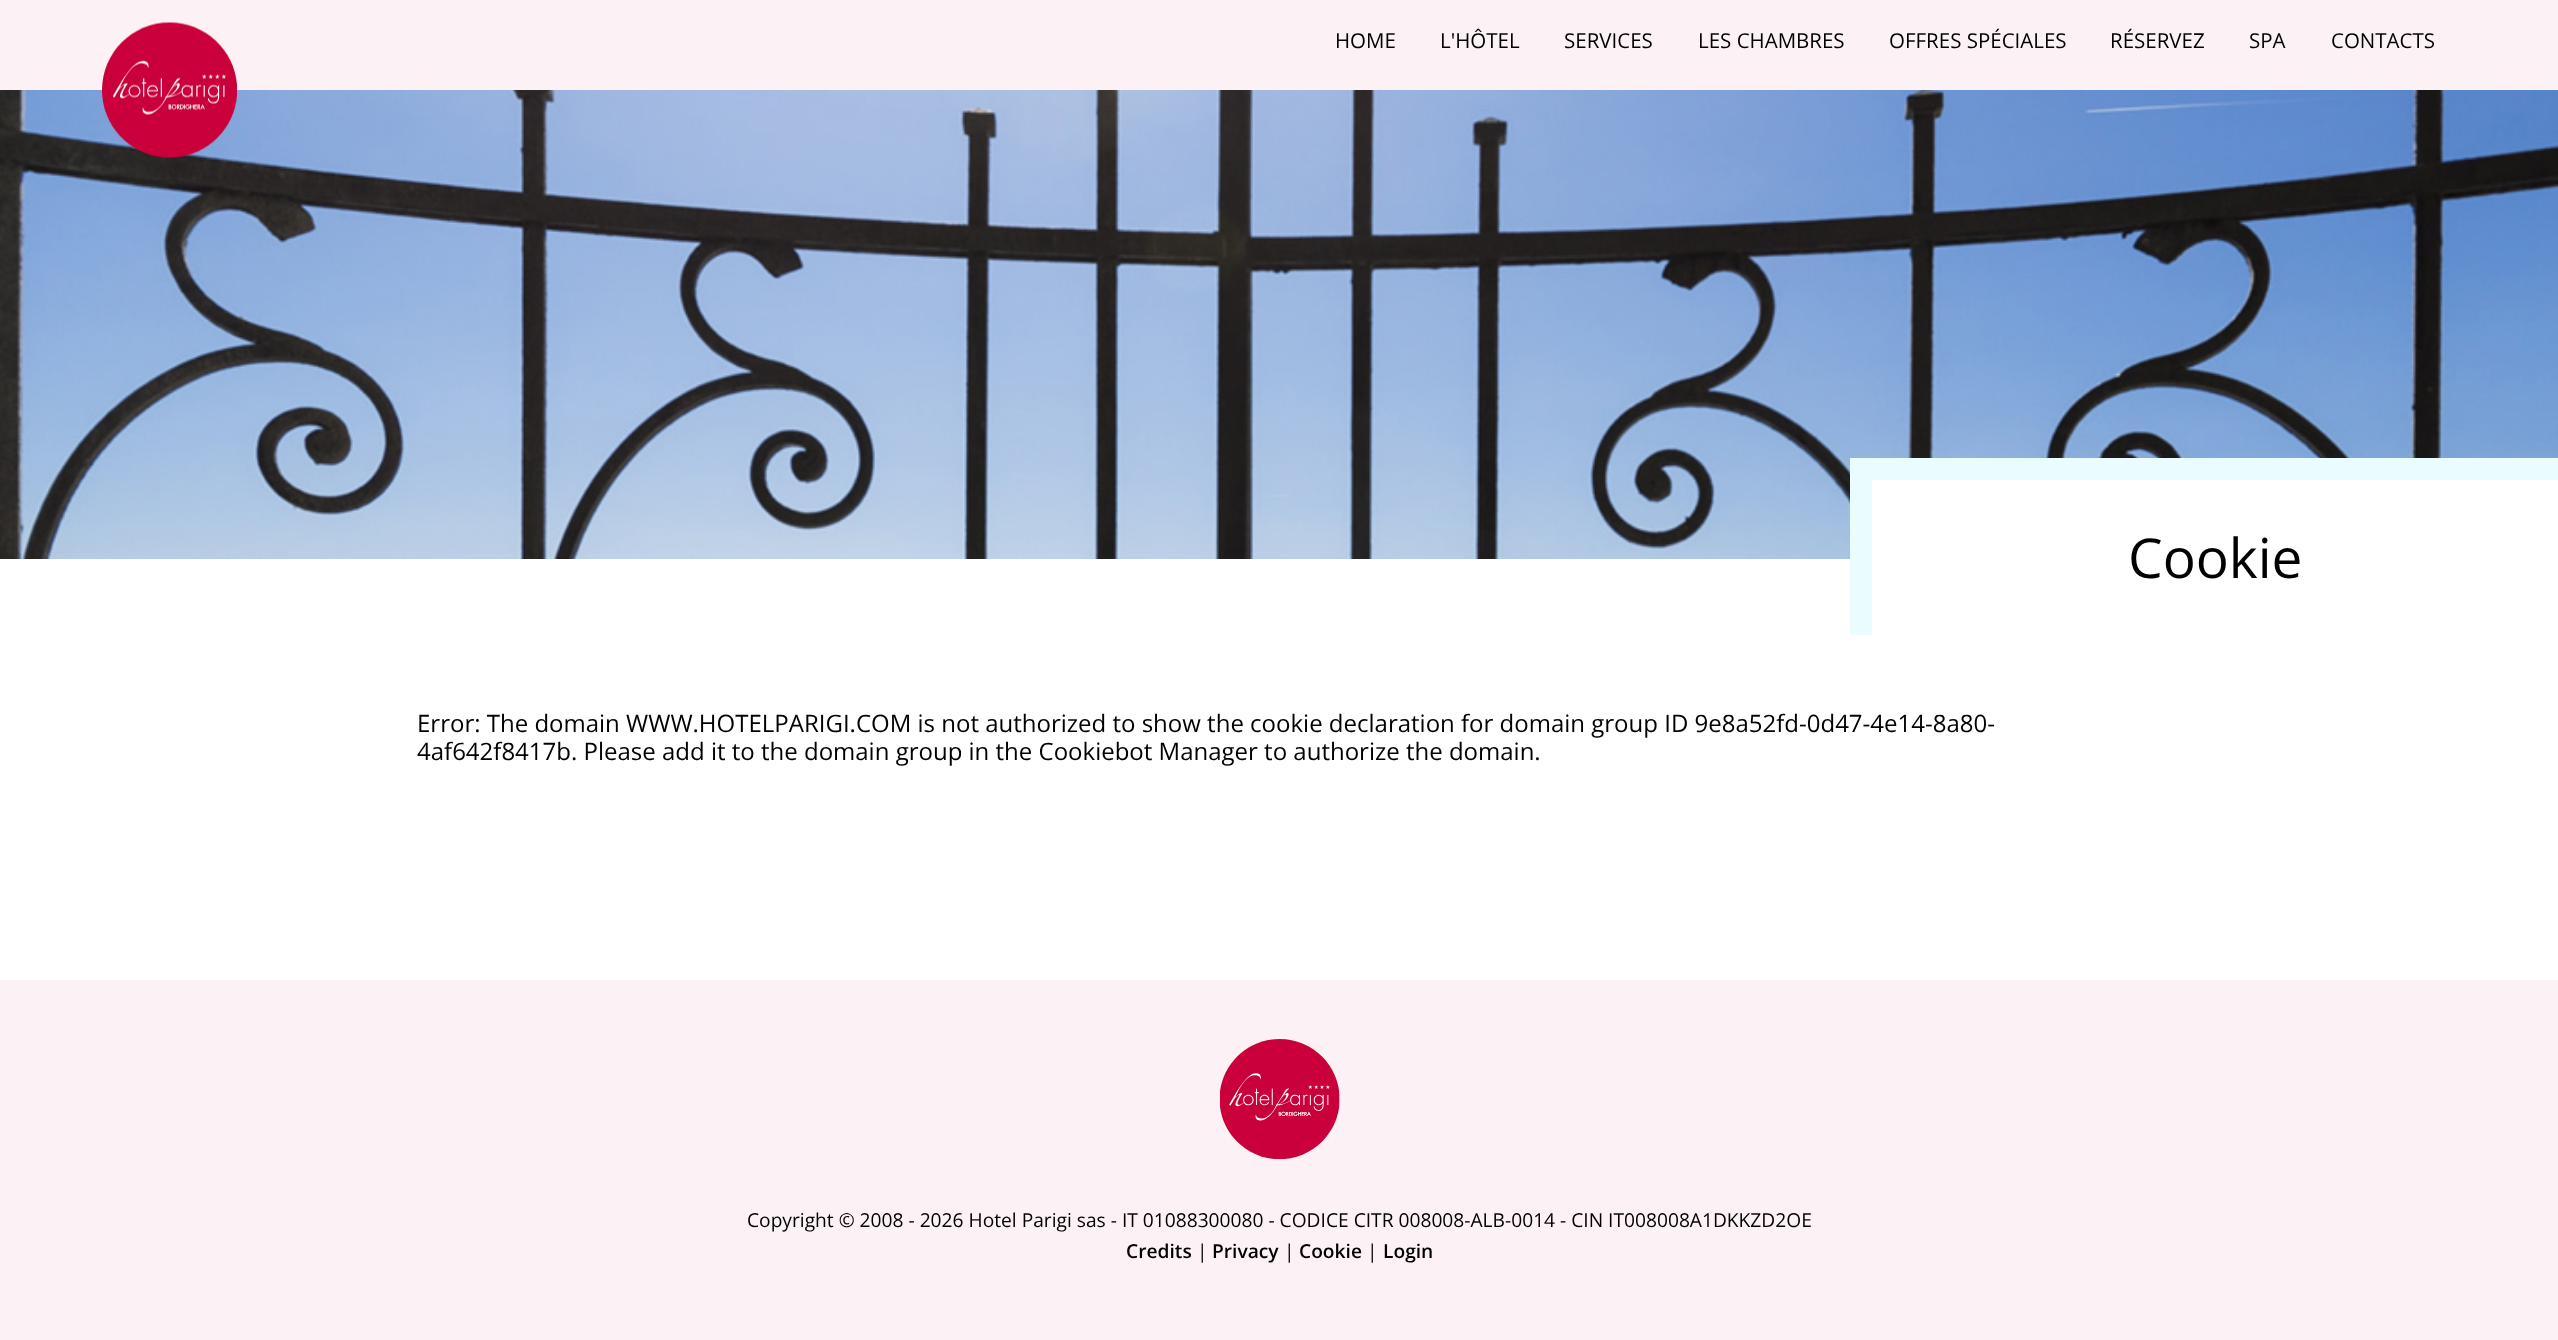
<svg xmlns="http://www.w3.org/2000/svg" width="2558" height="1340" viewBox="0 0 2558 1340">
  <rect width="100%" height="100%" fill="#fff"/>
  <path d="M0 0h2558v90H0z" fill="#fcf2f5"/>
  <image x="0" y="90" width="2558" height="469" href="img/2.png"/>
  <image x="102" y="22" width="135" height="136" href="img/1.png"/>
  <path d="M1872 480h686v79H1872z" fill="#fff"/>
  <path d="M1872 458h686v22H1872z" fill="#ebfcff"/>
  <path d="M1850 458h22v177H1850z" fill="#ebfcff"/>
  <path d="M0 980h2558v360H0z" fill="#fcf2f5"/>
  <image x="1220" y="1039" width="120" height="120" href="img/3.png"/>
  <g font-family="Open Sans" font-size="20.5" fill="#000">
    <text x="1335" y="48">HOME</text>
    <text x="1440" y="48">L'HÔTEL</text>
    <text x="1564" y="48">SERVICES</text>
    <text x="1698" y="48">LES CHAMBRES</text>
    <text x="1889" y="48">OFFRES SPÉCIALES</text>
    <text x="2110" y="48">RÉSERVEZ</text>
    <text x="2249" y="48">SPA</text>
    <text x="2331" y="48">CONTACTS</text>
  </g>
  <text x="2128" y="578" font-family="Open Sans" font-size="55" fill="#000">Cookie</text>
  <g font-family="Open Sans" font-size="24" fill="#000">
    <text x="417" y="732">Error: The domain WWW.HOTELPARIGI.COM is not authorized to show the cookie declaration for domain group ID 9e8a52fd-0d47-4e14-8a80-</text>
    <text x="417" y="760">4af642f8417b. Please add it to the domain group in the Cookiebot Manager to authorize the domain.</text>
  </g>
  <text x="747" y="1227" font-family="Open Sans" font-size="19.2" fill="#000">Copyright © 2008 - 2026 Hotel Parigi sas - IT 01088300080 - CODICE CITR 008008-ALB-0014 - CIN IT008008A1DKKZD2OE</text>
  <text x="1126" y="1258" font-family="Open Sans" font-size="19.2" font-weight="600" fill="#000">Credits</text>
  <text x="1197" y="1258" font-family="Open Sans" font-size="19.2" fill="#000">|</text>
  <text x="1212" y="1258" font-family="Open Sans" font-size="19.2" font-weight="600" fill="#000">Privacy</text>
  <text x="1284" y="1258" font-family="Open Sans" font-size="19.2" fill="#000">|</text>
  <text x="1299" y="1258" font-family="Open Sans" font-size="19.2" font-weight="600" fill="#000">Cookie</text>
  <text x="1367" y="1258" font-family="Open Sans" font-size="19.2" fill="#000">|</text>
  <text x="1383" y="1258" font-family="Open Sans" font-size="19.2" font-weight="600" fill="#000">Login</text>
</svg>
